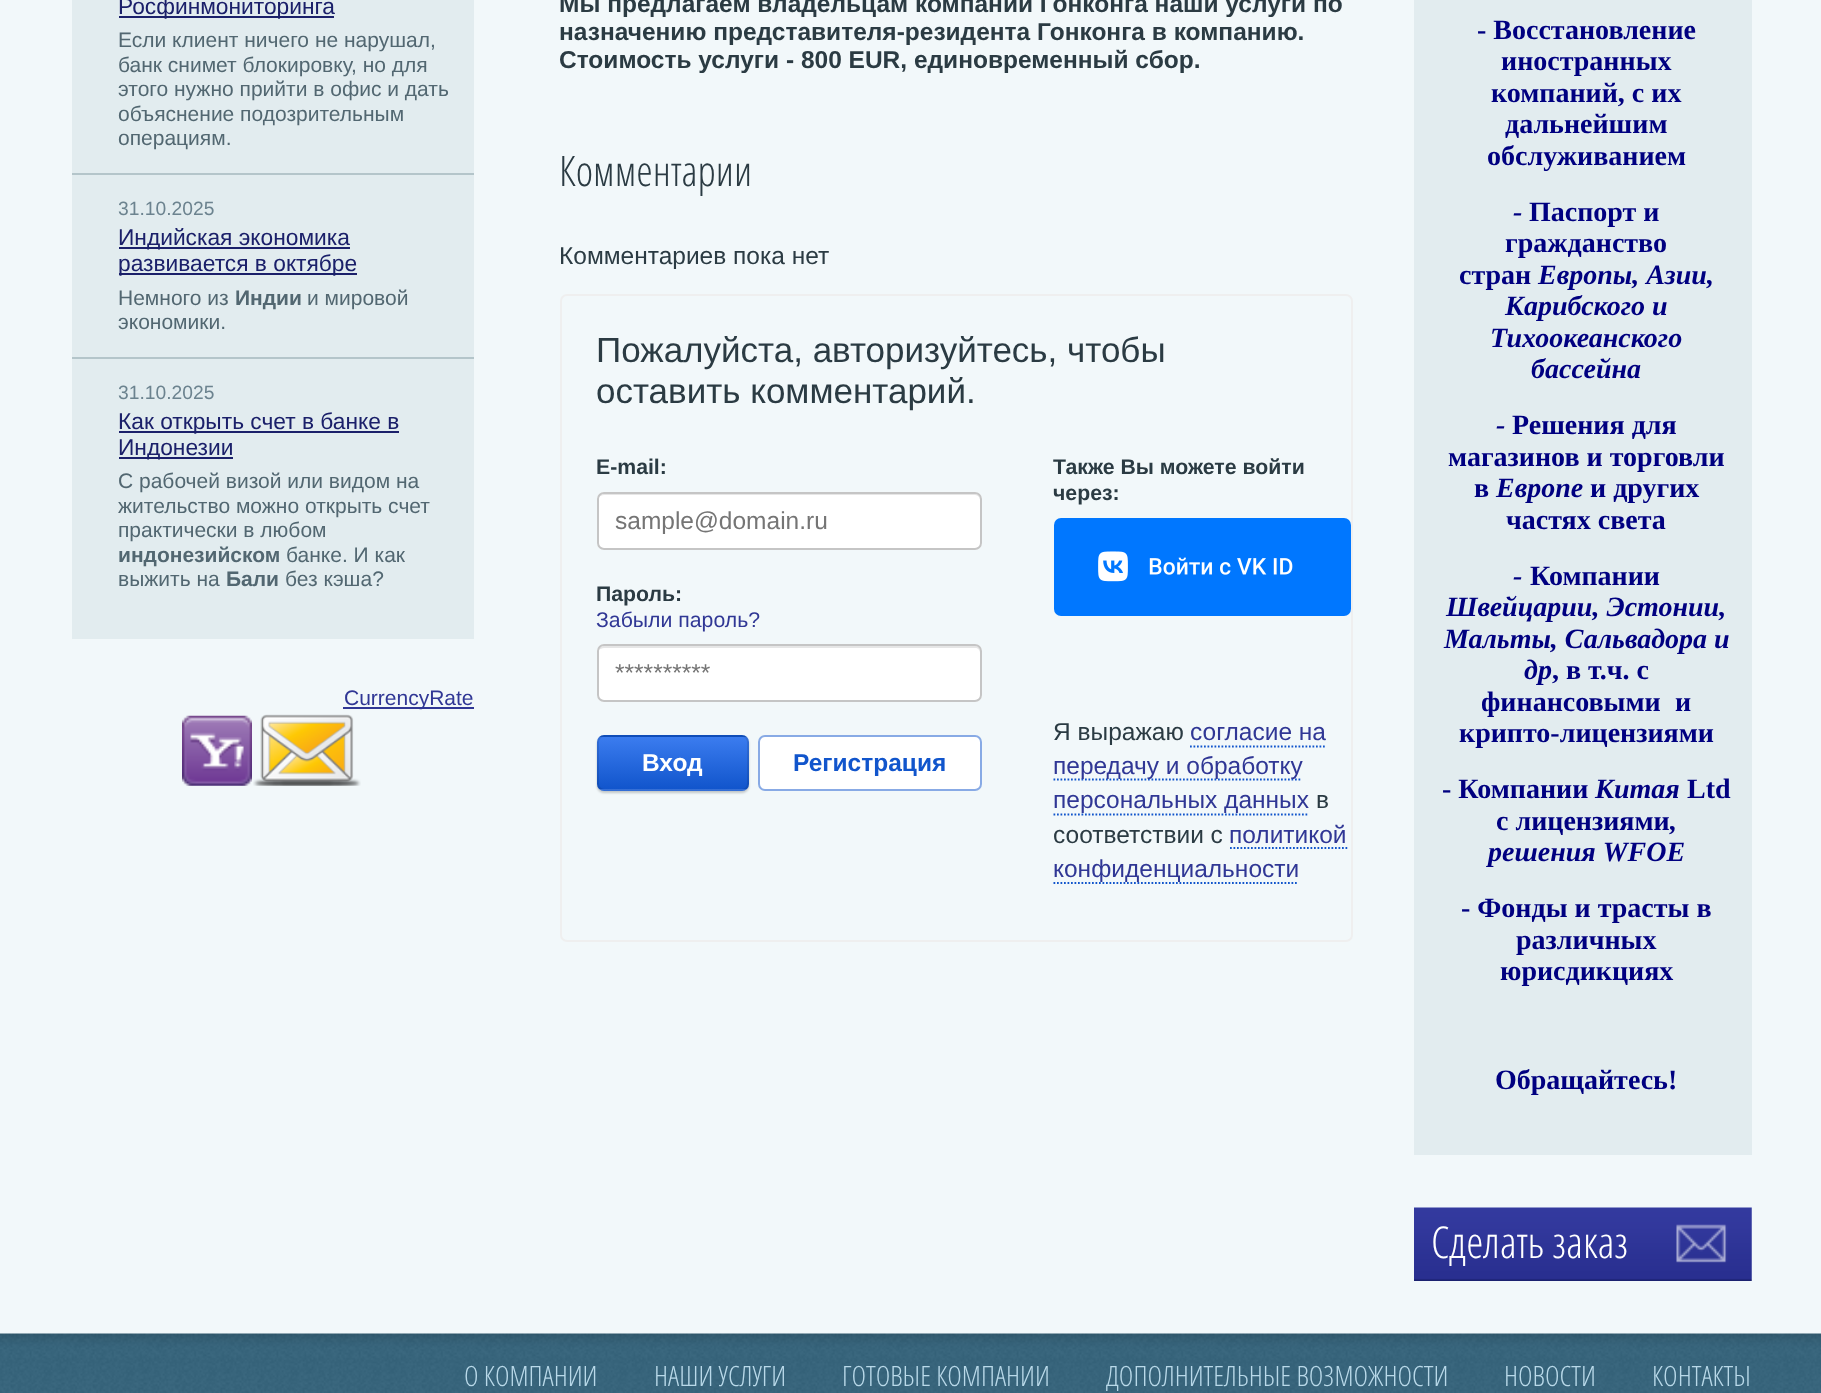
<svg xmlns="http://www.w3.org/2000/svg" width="1821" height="1393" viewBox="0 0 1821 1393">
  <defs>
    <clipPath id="clip1"><rect x="597" y="735" width="152" height="56" rx="7"/></clipPath>
    <linearGradient id="g1" gradientUnits="userSpaceOnUse" x1="673" y1="684" x2="673" y2="737"><stop offset="0" stop-color="#3b7cef"/><stop offset="1" stop-color="#15c"/></linearGradient>
    <linearGradient id="g2" gradientUnits="userSpaceOnUse" x1="673" y1="737" x2="673" y2="789"><stop offset="0" stop-color="#3b7cef"/><stop offset="1" stop-color="#15c"/></linearGradient>
    <linearGradient id="g3" gradientUnits="userSpaceOnUse" x1="673" y1="789" x2="673" y2="842"><stop offset="0" stop-color="#3b7cef"/><stop offset="1" stop-color="#15c"/></linearGradient>
  </defs>
  <rect width="100%" height="100%" fill="#f2f8fa"/>
  <path d="M72 0h402v639H72z" fill="#e2ecef"/>
  <path d="M119 16h215v2H119z" fill="#1b206a"/>
  <path d="M72 173h402v2H72z" fill="#b4c5ca"/>
  <path d="M119 247h231v2H119z" fill="#1b206a"/>
  <path d="M119 273h238v2H119z" fill="#1b206a"/>
  <path d="M72 357h402v2H72z" fill="#b4c5ca"/>
  <path d="M119 431h280v2H119z" fill="#1b206a"/>
  <path d="M119 457h114v2H119z" fill="#1b206a"/>
  <path d="M343 707h131v2H343z" fill="#303795"/>
  <image x="182" y="715" width="70" height="71" href="img/1.png"/>
  <image x="253" y="714" width="108" height="72" href="img/2.png"/>
  <rect x="561" y="295" width="791" height="646" rx="6" fill="none" stroke="#efefef" stroke-width="2"/>
  <rect x="597" y="492" width="385" height="58" rx="7" fill="#fff"/>
  <path d="M604 495H975C978 495 980 498 980 500V499C980 496 978 494 975 494H604C602 494 600 495 599 497C600 496 602 495 604 495Z" fill="#e6e6e6"/>
  <rect x="598" y="493" width="383" height="56" rx="6" fill="none" stroke="#c5c5c5" stroke-width="2"/>
  <rect x="597" y="644" width="385" height="58" rx="7" fill="#fff"/>
  <path d="M604 648H975C978 648 980 650 980 653V651C980 648 978 646 975 646H604C602 646 599 648 599 650C600 649 602 648 604 648Z" fill="#e6e6e6"/>
  <rect x="598" y="645" width="383" height="56" rx="6" fill="none" stroke="#c5c5c5" stroke-width="2"/>
  <rect x="597" y="737" width="152" height="56" rx="7" fill="#00000033" filter="blur(1px)"/>
  <g clip-path="url(#clip1)">
    <path d="M597 735h152v2H597z" fill="url(#g1)"/>
    <path d="M597 737h152v52H597z" fill="url(#g2)"/>
    <path d="M597 789h152v2H597z" fill="url(#g3)"/>
  </g>
  <rect x="598" y="736" width="150" height="54" rx="6" fill="none" stroke="#0000001a" stroke-width="2"/>
  <rect x="758" y="735" width="224" height="56" rx="7" fill="#fff"/>
  <rect x="759" y="736" width="222" height="54" rx="6" fill="none" stroke="#1155cc80" stroke-width="2"/>
  <rect x="1054" y="518" width="297" height="98" rx="7" fill="#07f"/>
  <image x="1098" y="551" width="195" height="31" href="img/3.png"/>
  <path d="M1190 746.5H1326.5" fill="none" stroke="#15c" stroke-width="1.8" stroke-dasharray="1.75 1.75"/>
  <path d="M1053.5 779.5H1302" fill="none" stroke="#15c" stroke-width="1.8" stroke-dasharray="1.75 1.75"/>
  <path d="M1053.5 814.5H1309" fill="none" stroke="#15c" stroke-width="1.8" stroke-dasharray="1.75 1.75"/>
  <path d="M1230 848H1347.5" fill="none" stroke="#15c" stroke-width="1.8" stroke-dasharray="1.75 1.75"/>
  <path d="M1053.5 883H1298.5" fill="none" stroke="#15c" stroke-width="1.8" stroke-dasharray="1.75 1.75"/>
  <path d="M1414 0h338v1155H1414z" fill="#e2ecef"/>
  <image x="1414" y="1207" width="338" height="74" href="img/4.png"/>
  <image x="0" y="1333" width="1821" height="60" href="img/5.png"/>
  <text x="118" y="14" font-family="Liberation Sans" font-size="22.75" fill="#1b206a">Росфинмониторинга</text>
  <g font-family="Liberation Sans" font-size="21" fill="#526771">
    <text x="118" y="47">Если клиент ничего не нарушал,</text>
    <text x="118" y="72">банк снимет блокировку, но для</text>
    <text x="118" y="96">этого нужно прийти в офис и дать</text>
    <text x="118" y="121">объяснение подозрительным</text>
    <text x="118" y="145">операциям.</text>
  </g>
  <text x="118" y="215" font-family="Liberation Sans" font-size="19.25" fill="#6c838f">31.10.2025</text>
  <g font-family="Liberation Sans" font-size="22.75" fill="#1b206a">
    <text x="118" y="245">Индийская экономика</text>
    <text x="118" y="271">развивается в октябре</text>
  </g>
  <text x="118" y="305" font-family="Liberation Sans" font-size="21" fill="#526771">Немного из</text>
  <text x="235" y="305" font-family="Liberation Sans" font-size="21" font-weight="bold" fill="#526771">Индии</text>
  <g font-family="Liberation Sans" font-size="21" fill="#526771">
    <text x="307" y="305">и мировой</text>
    <text x="118" y="329">экономики.</text>
  </g>
  <text x="118" y="399" font-family="Liberation Sans" font-size="19.25" fill="#6c838f">31.10.2025</text>
  <g font-family="Liberation Sans" font-size="22.75" fill="#1b206a">
    <text x="118" y="429">Как открыть счет в банке в</text>
    <text x="118" y="455">Индонезии</text>
  </g>
  <g font-family="Liberation Sans" font-size="21" fill="#526771">
    <text x="118" y="488">С рабочей визой или видом на</text>
    <text x="118" y="513">жительство можно открыть счет</text>
    <text x="118" y="537">практически в любом</text>
  </g>
  <text x="118" y="562" font-family="Liberation Sans" font-size="21" font-weight="bold" fill="#526771">индонезийском</text>
  <g font-family="Liberation Sans" font-size="21" fill="#526771">
    <text x="286" y="562">банке. И как</text>
    <text x="118" y="586">выжить на</text>
  </g>
  <text x="226" y="586" font-family="Liberation Sans" font-size="21" font-weight="bold" fill="#526771">Бали</text>
  <text x="285" y="586" font-family="Liberation Sans" font-size="21" fill="#526771">без кэша?</text>
  <text x="344" y="705" font-family="Liberation Sans" font-size="21" fill="#303795">CurrencyRate</text>
  <g font-family="Liberation Sans" font-size="24.5" font-weight="bold" fill="#2b3b43">
    <text x="559" y="12">Мы предлагаем владельцам компаний Гонконга наши услуги по</text>
    <text x="559" y="40">назначению представителя-резидента Гонконга в компанию.</text>
    <text x="559" y="68">Стоимость услуги - 800 EUR, единовременный сбор.</text>
  </g>
  <text x="559" y="186" font-family="Open Sans" font-size="42" font-weight="300" fill="#2b3b43">Комментарии</text>
  <text x="559" y="264" font-family="Liberation Sans" font-size="24.5" fill="#2b3b43">Комментариев пока нет</text>
  <g font-family="Liberation Sans" font-size="35" fill="#2b3b43">
    <text x="596" y="362">Пожалуйста, авторизуйтесь, чтобы</text>
    <text x="596" y="403">оставить комментарий.</text>
  </g>
  <text x="596" y="474" font-family="Liberation Sans" font-size="21.25" font-weight="bold" fill="#2b3b43">E-mail:</text>
  <text x="615" y="529" font-family="Liberation Sans" font-size="24.5" fill="#757575">sample@domain.ru</text>
  <text x="596" y="601" font-family="Liberation Sans" font-size="21.25" font-weight="bold" fill="#2b3b43">Пароль:</text>
  <text x="596" y="627" font-family="Liberation Sans" font-size="21.25" fill="#303795">Забыли пароль?</text>
  <text x="615" y="681" font-family="Liberation Sans" font-size="24.5" fill="#757575">**********</text>
  <text x="642" y="771" font-family="Liberation Sans" font-size="24.5" font-weight="bold" fill="#fff">Вход</text>
  <text x="793" y="771" font-family="Liberation Sans" font-size="24.5" font-weight="bold" fill="#15c">Регистрация</text>
  <g font-family="Liberation Sans" font-size="21.25" font-weight="bold" fill="#2b3b43">
    <text x="1053" y="474">Также Вы можете войти</text>
    <text x="1053" y="500">через:</text>
  </g>
  <text x="1053" y="740" font-family="Liberation Sans" font-size="24.5" fill="#2b3b43">Я выражаю</text>
  <g font-family="Liberation Sans" font-size="24.5" fill="#303795">
    <text x="1190" y="740">согласие на</text>
    <text x="1053" y="774">передачу и обработку</text>
    <text x="1053" y="808">персональных данных</text>
  </g>
  <g font-family="Liberation Sans" font-size="24.5" fill="#2b3b43">
    <text x="1316" y="808">в</text>
    <text x="1053" y="843">соответствии с</text>
  </g>
  <g font-family="Liberation Sans" font-size="24.5" fill="#303795">
    <text x="1229" y="843">политикой</text>
    <text x="1053" y="877">конфиденциальности</text>
  </g>
  <g font-family="Liberation Serif" font-size="28" font-weight="bold" fill="#000080">
    <text x="1477" y="39">- Восстановление</text>
    <text x="1501" y="70">иностранных</text>
    <text x="1491" y="102">компаний, с их</text>
    <text x="1505" y="133">дальнейшим</text>
    <text x="1487" y="165">обслуживанием</text>
  </g>
  <text x="1513" y="221" font-family="Liberation Serif" font-size="28" font-weight="bold" font-style="italic" fill="#000080">-</text>
  <g font-family="Liberation Serif" font-size="28" font-weight="bold" fill="#000080">
    <text x="1529" y="221">Паспорт и</text>
    <text x="1505" y="252">гражданство</text>
    <text x="1459" y="284">стран</text>
  </g>
  <g font-family="Liberation Serif" font-size="28" font-weight="bold" font-style="italic" fill="#000080">
    <text x="1538" y="284">Европы, Азии,</text>
    <text x="1505" y="315">Карибского и</text>
    <text x="1490" y="347">Тихоокеанского</text>
    <text x="1531" y="378">бассейна</text>
    <text x="1496" y="434">-</text>
  </g>
  <g font-family="Liberation Serif" font-size="28" font-weight="bold" fill="#000080">
    <text x="1512" y="434">Решения для</text>
    <text x="1448" y="466">магазинов и торговли</text>
    <text x="1474" y="497">в</text>
  </g>
  <text x="1496" y="497" font-family="Liberation Serif" font-size="28" font-weight="bold" font-style="italic" fill="#000080">Европе</text>
  <g font-family="Liberation Serif" font-size="28" font-weight="bold" fill="#000080">
    <text x="1590" y="497">и других</text>
    <text x="1506" y="529">частях света</text>
  </g>
  <text x="1513" y="585" font-family="Liberation Serif" font-size="28" font-weight="bold" font-style="italic" fill="#000080">-</text>
  <text x="1530" y="585" font-family="Liberation Serif" font-size="28" font-weight="bold" fill="#000080">Компании</text>
  <g font-family="Liberation Serif" font-size="28" font-weight="bold" font-style="italic" fill="#000080">
    <text x="1446" y="616">Швейцарии, Эстонии,</text>
    <text x="1444" y="648">Мальты, Сальвадора и</text>
    <text x="1524" y="679">др</text>
  </g>
  <g font-family="Liberation Serif" font-size="28" font-weight="bold" fill="#000080">
    <text x="1552" y="679">, в т.ч. с</text>
    <text x="1481" y="711">финансовыми</text>
    <text x="1675" y="711">и</text>
    <text x="1459" y="742">крипто-лицензиями</text>
    <text x="1442" y="798">- Компании</text>
  </g>
  <text x="1595" y="798" font-family="Liberation Serif" font-size="28" font-weight="bold" font-style="italic" fill="#000080">Китая</text>
  <g font-family="Liberation Serif" font-size="28" font-weight="bold" fill="#000080">
    <text x="1687" y="798">Ltd</text>
    <text x="1496" y="830">с лицензиями</text>
  </g>
  <g font-family="Liberation Serif" font-size="28" font-weight="bold" font-style="italic" fill="#000080">
    <text x="1670" y="830">,</text>
    <text x="1488" y="861">решения WFOE</text>
  </g>
  <g font-family="Liberation Serif" font-size="28" font-weight="bold" fill="#000080">
    <text x="1461" y="917">- Фонды и трасты в</text>
    <text x="1516" y="949">различных</text>
    <text x="1500" y="980">юрисдикциях</text>
    <text x="1495" y="1089">Обращайтесь!</text>
  </g>
  <text x="1431" y="1258" font-family="Open Sans" font-size="43.75" font-weight="300" fill="#fff">Сделать заказ</text>
  <g font-family="Open Sans" font-size="28" font-weight="300" fill="#b9d9e9">
    <text x="464" y="1386">О КОМПАНИИ</text>
    <text x="654" y="1386">НАШИ УСЛУГИ</text>
    <text x="842" y="1386">ГОТОВЫЕ КОМПАНИИ</text>
    <text x="1106" y="1386">ДОПОЛНИТЕЛЬНЫЕ ВОЗМОЖНОСТИ</text>
    <text x="1504" y="1386">НОВОСТИ</text>
    <text x="1652" y="1386">КОНТАКТЫ</text>
  </g>
</svg>
